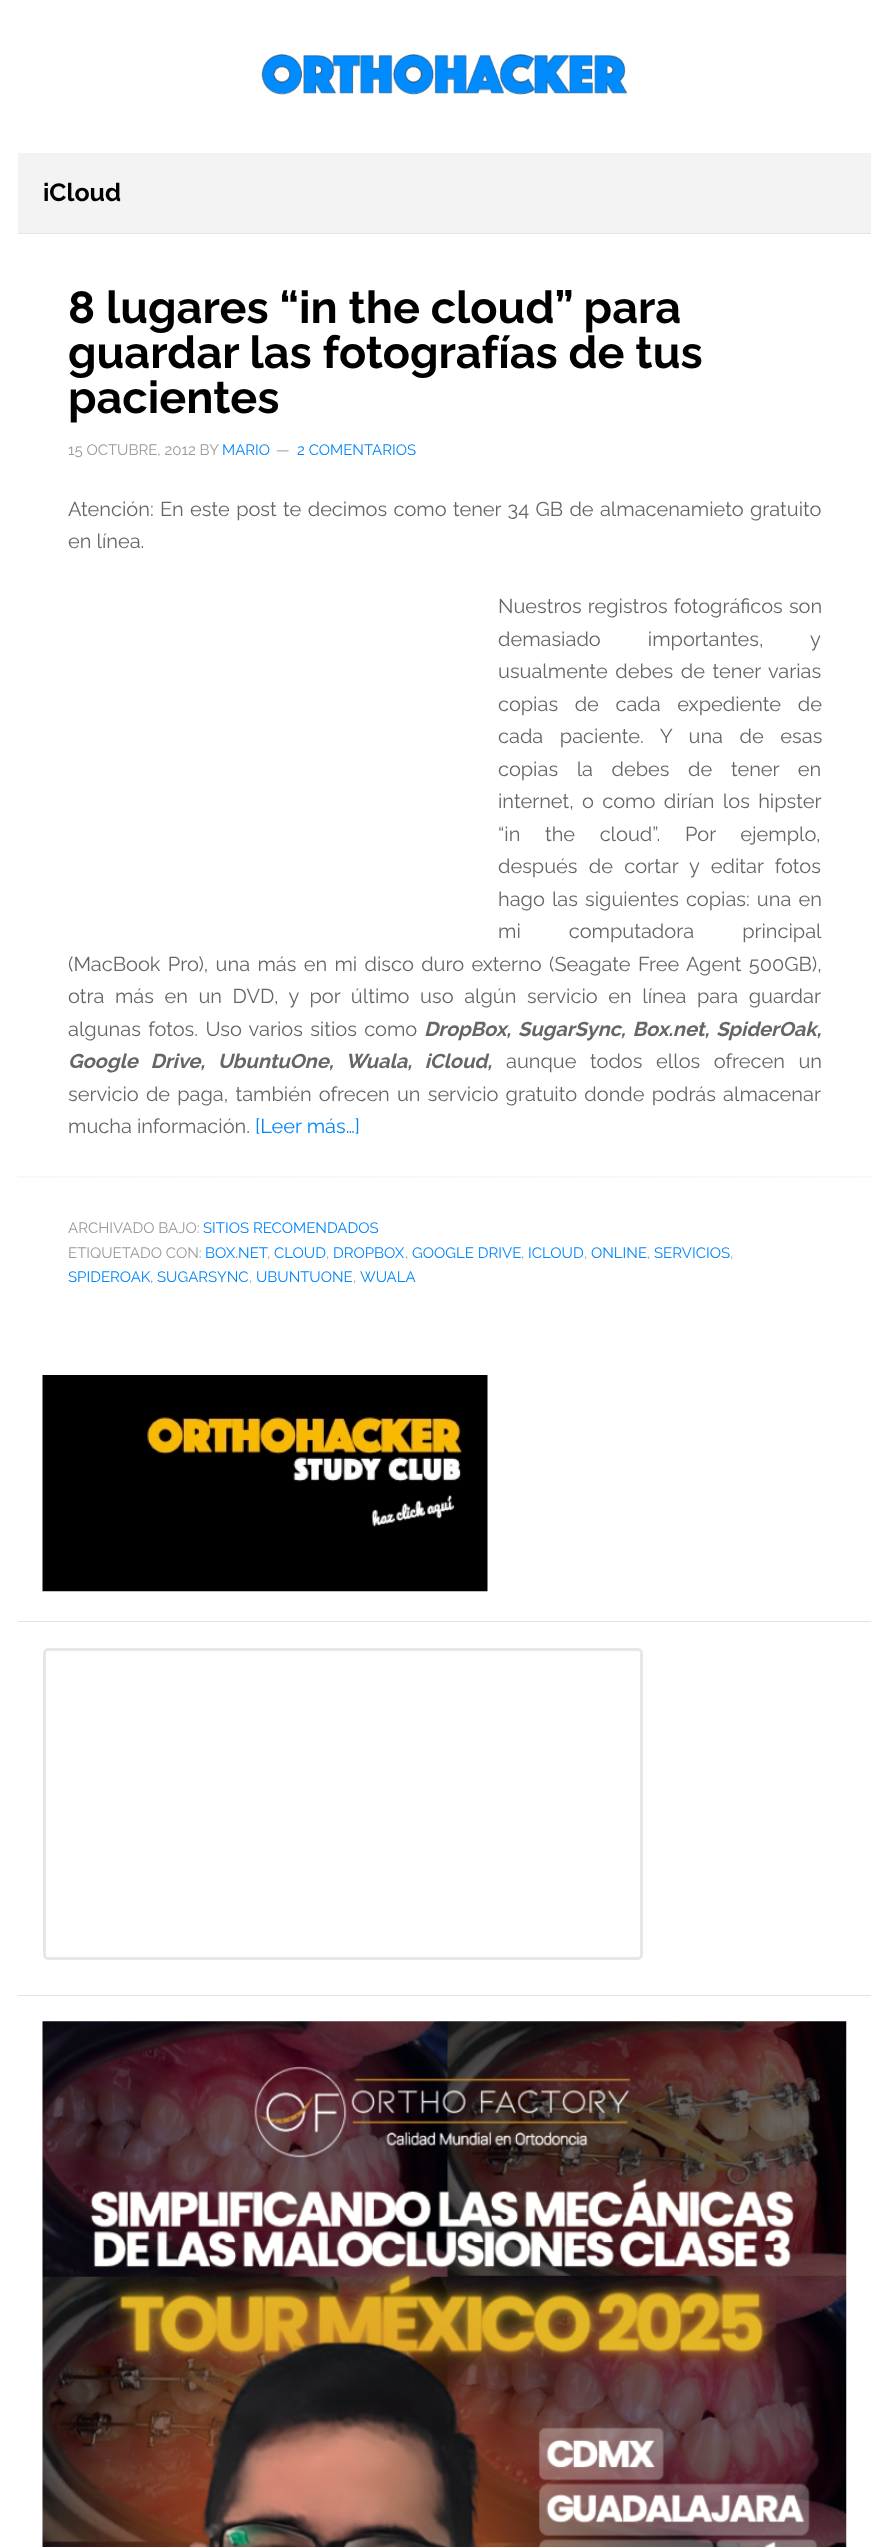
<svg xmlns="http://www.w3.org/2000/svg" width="888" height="2547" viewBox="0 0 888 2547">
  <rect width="100%" height="100%" fill="#fff"/>
  <image x="261" y="54" width="367" height="41" href="img/1.png"/>
  <path d="M18 153h853v80H18z" fill="#f3f3f3"/>
  <path d="M18 233h853v1H18z" fill="#e3e3e3"/>
  <path d="M17.5 1177H871" fill="none" stroke="#e3e3e3" stroke-width="1.2" stroke-dasharray="1.25 1.25"/>
  <path d="M18 1621h853v1H18z" fill="#e3e3e3"/>
  <image x="42" y="1375" width="446" height="217" href="img/2.png"/>
  <path d="M18 1995h853v1H18z" fill="#e3e3e3"/>
  <rect x="44.5" y="1649.5" width="597" height="309" rx="3.5" fill="none" stroke="#e5e7eb" stroke-width="3"/>
  <image x="42" y="2021" width="805" height="526" href="img/3.png"/>
  <text x="43" y="201" font-family="Raleway" font-size="25" font-weight="bold" fill="#000">iCloud</text>
  <g font-family="Raleway" font-size="45" font-weight="bold" fill="#000">
    <text x="68" y="323">8 lugares “in the cloud” para</text>
    <text x="68" y="368">guardar las fotografías de tus</text>
    <text x="68" y="413">pacientes</text>
  </g>
  <text x="68" y="455" font-family="Raleway" font-size="15" fill="#999">15 OCTUBRE, 2012 BY</text>
  <text x="222" y="455" font-family="Raleway" font-size="15" fill="#0085f9">MARIO</text>
  <text x="276" y="455" font-family="Raleway" font-size="15" fill="#999">—</text>
  <text x="297" y="455" font-family="Raleway" font-size="15" fill="#0085f9">2 COMENTARIOS</text>
  <g font-family="Raleway" font-size="20" fill="#666">
    <text x="68" y="516" word-spacing="1.25">Atención: En este post te decimos como tener 34 GB de almacenamieto gratuito</text>
    <text x="68" y="548">en línea.</text>
    <text x="498" y="613" word-spacing="1">Nuestros registros fotográficos son</text>
    <text x="498" y="646" word-spacing="42">demasiado importantes, y</text>
    <text x="498" y="678" word-spacing="2.5">usualmente debes de tener varias</text>
    <text x="498" y="711" word-spacing="11.5">copias de cada expediente de</text>
    <text x="498" y="743" word-spacing="11.5">cada paciente. Y una de esas</text>
    <text x="498" y="776" word-spacing="13.5">copias la debes de tener en</text>
    <text x="498" y="808" word-spacing="3.25">internet, o como dirían los hipster</text>
    <text x="498" y="841" word-spacing="19.5">“in the cloud”. Por ejemplo,</text>
    <text x="498" y="873" word-spacing="6.25">después de cortar y editar fotos</text>
    <text x="498" y="906" word-spacing="2">hago las siguientes copias: una en</text>
    <text x="498" y="938" word-spacing="43">mi computadora principal</text>
    <text x="68" y="971" word-spacing="2.25">(MacBook Pro), una más en mi disco duro externo (Seagate Free Agent 500GB),</text>
    <text x="68" y="1003" word-spacing="5.5">otra más en un DVD, y por último uso algún servicio en línea para guardar</text>
    <text x="68" y="1036" word-spacing="2.25">algunas fotos. Uso varios sitios como</text>
  </g>
  <g font-family="Raleway" font-size="20" font-weight="bold" font-style="italic" fill="#666">
    <text x="424" y="1036" word-spacing="2.25">DropBox, SugarSync, Box.net, SpiderOak,</text>
    <text x="68" y="1068" word-spacing="8">Google Drive, UbuntuOne, Wuala, iCloud,</text>
  </g>
  <g font-family="Raleway" font-size="20" fill="#666">
    <text x="506" y="1068" word-spacing="8.5">aunque todos ellos ofrecen un</text>
    <text x="68" y="1101" word-spacing="2.1">servicio de paga, también ofrecen un servicio gratuito donde podrás almacenar</text>
    <text x="68" y="1133">mucha información.</text>
  </g>
  <text x="255" y="1133" font-family="Raleway" font-size="20" fill="#0085f9">[Leer más…]</text>
  <text x="68" y="1233" font-family="Raleway" font-size="15" fill="#999">ARCHIVADO BAJO:</text>
  <text x="203" y="1233" font-family="Raleway" font-size="15" fill="#0085f9">SITIOS RECOMENDADOS</text>
  <text x="68" y="1258" font-family="Raleway" font-size="15" fill="#999">ETIQUETADO CON:</text>
  <text x="205" y="1258" font-family="Raleway" font-size="15" fill="#0085f9">BOX.NET</text>
  <text x="267" y="1258" font-family="Raleway" font-size="15" fill="#999">,</text>
  <text x="274" y="1258" font-family="Raleway" font-size="15" fill="#0085f9">CLOUD</text>
  <text x="326" y="1258" font-family="Raleway" font-size="15" fill="#999">,</text>
  <text x="333" y="1258" font-family="Raleway" font-size="15" fill="#0085f9">DROPBOX</text>
  <text x="405" y="1258" font-family="Raleway" font-size="15" fill="#999">,</text>
  <text x="412" y="1258" font-family="Raleway" font-size="15" fill="#0085f9">GOOGLE DRIVE</text>
  <text x="521" y="1258" font-family="Raleway" font-size="15" fill="#999">,</text>
  <text x="528" y="1258" font-family="Raleway" font-size="15" fill="#0085f9">ICLOUD</text>
  <text x="584" y="1258" font-family="Raleway" font-size="15" fill="#999">,</text>
  <text x="591" y="1258" font-family="Raleway" font-size="15" fill="#0085f9">ONLINE</text>
  <text x="647" y="1258" font-family="Raleway" font-size="15" fill="#999">,</text>
  <text x="654" y="1258" font-family="Raleway" font-size="15" fill="#0085f9">SERVICIOS</text>
  <text x="730" y="1258" font-family="Raleway" font-size="15" fill="#999">,</text>
  <text x="68" y="1282" font-family="Raleway" font-size="15" fill="#0085f9">SPIDEROAK</text>
  <text x="150" y="1282" font-family="Raleway" font-size="15" fill="#999">,</text>
  <text x="157" y="1282" font-family="Raleway" font-size="15" fill="#0085f9">SUGARSYNC</text>
  <text x="249" y="1282" font-family="Raleway" font-size="15" fill="#999">,</text>
  <text x="256" y="1282" font-family="Raleway" font-size="15" fill="#0085f9">UBUNTUONE</text>
  <text x="353" y="1282" font-family="Raleway" font-size="15" fill="#999">,</text>
  <text x="360" y="1282" font-family="Raleway" font-size="15" fill="#0085f9">WUALA</text>
</svg>
